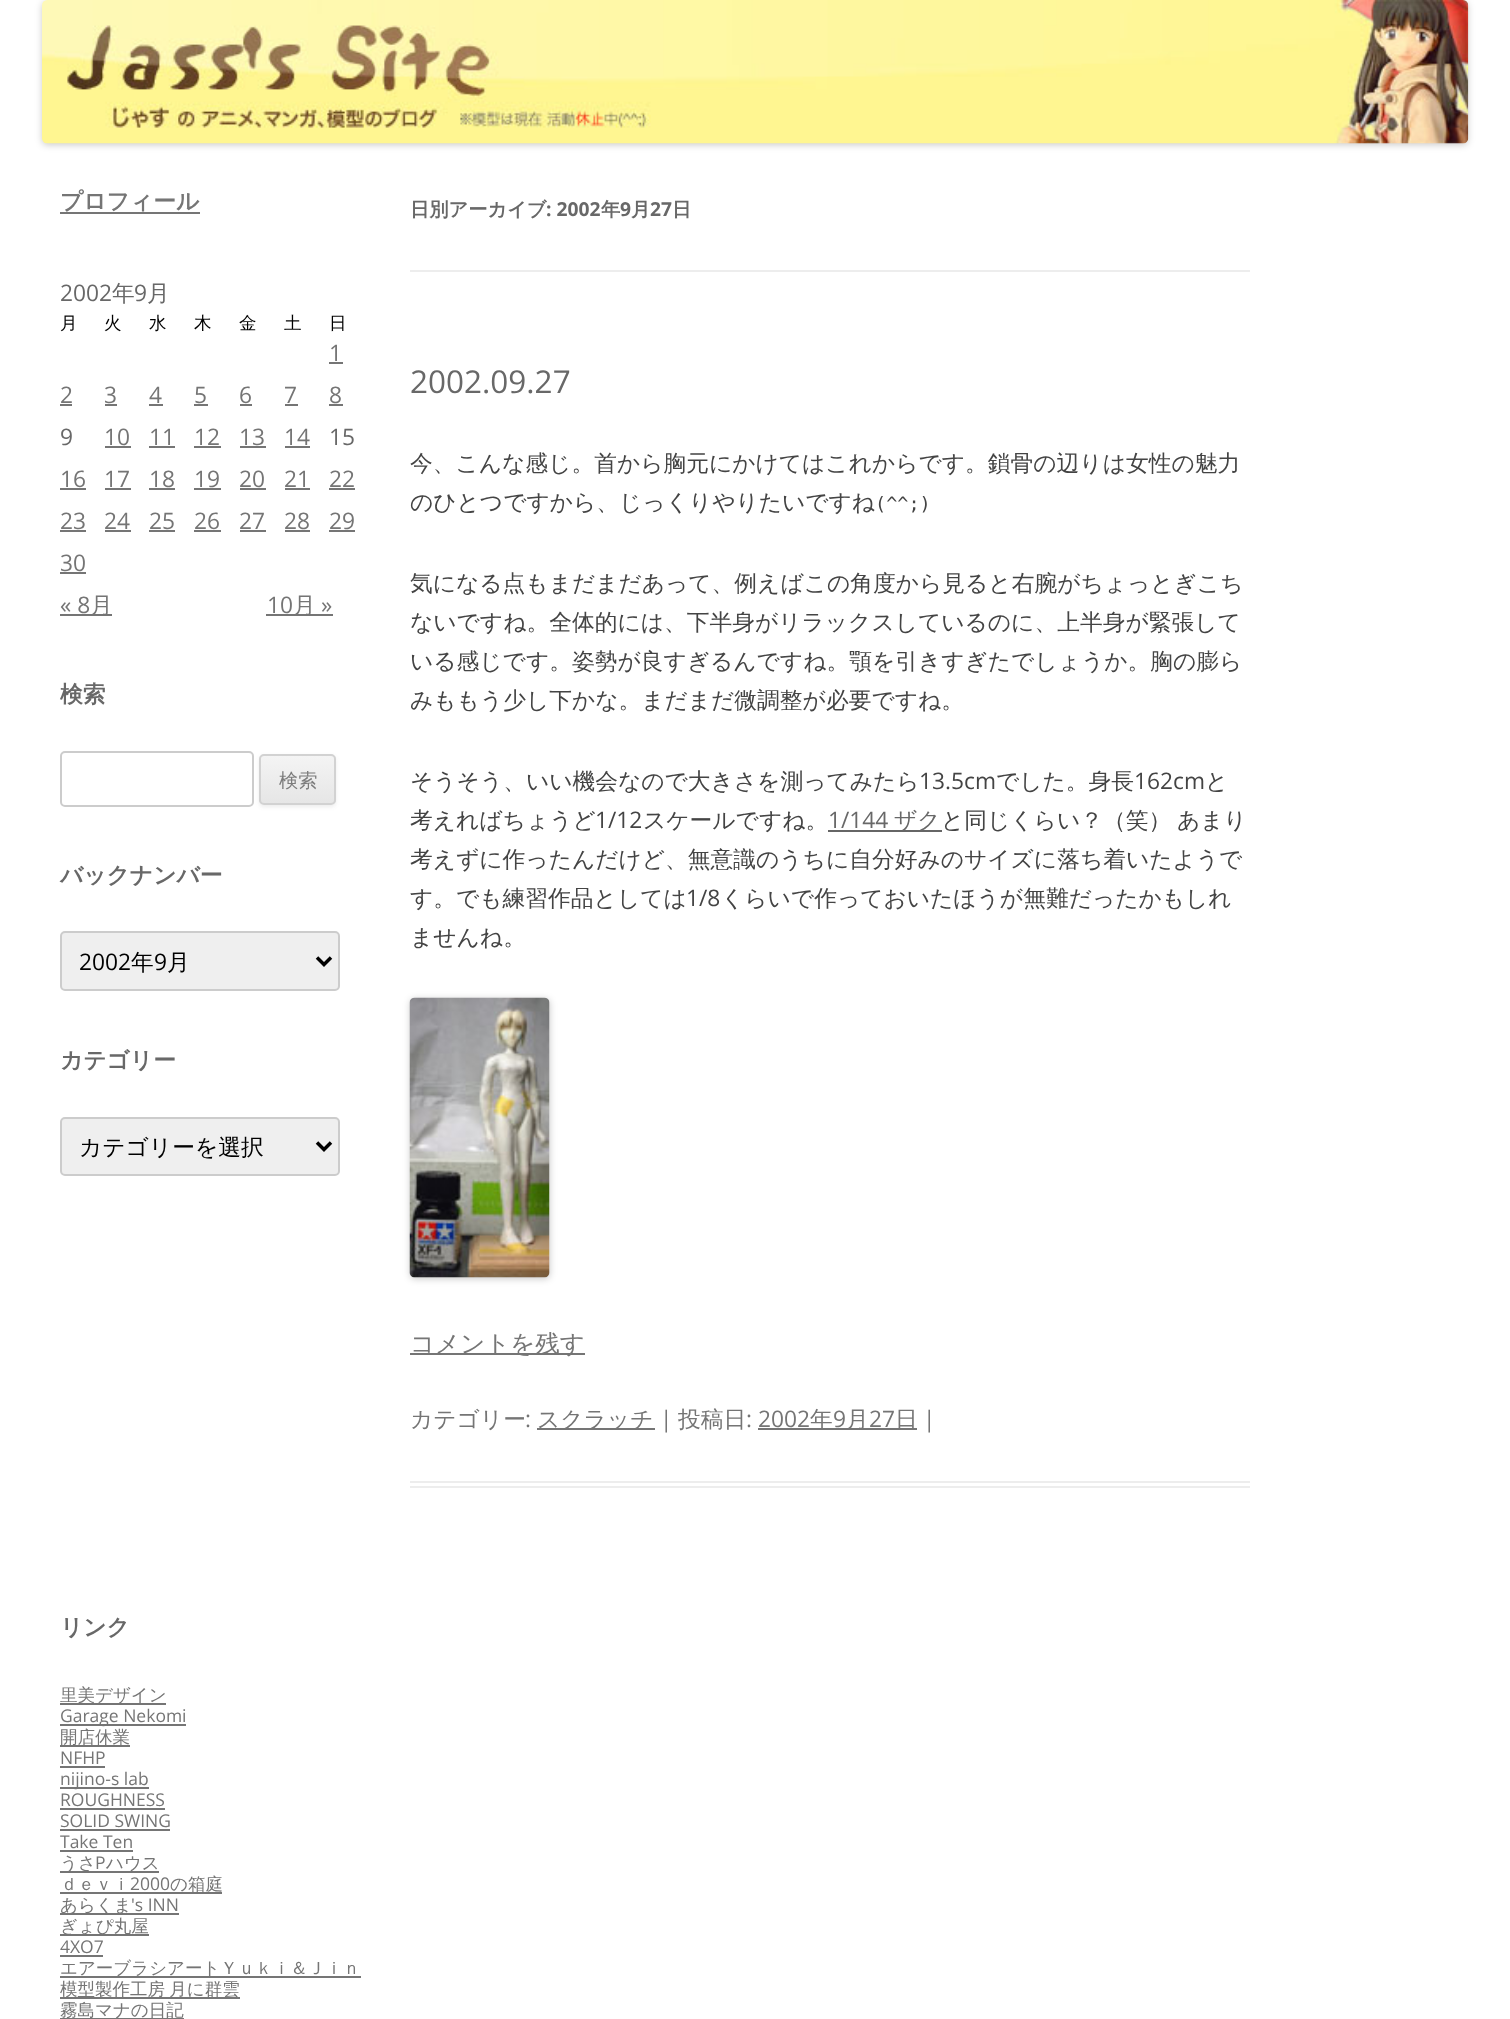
<svg xmlns="http://www.w3.org/2000/svg" width="1510" height="2019" viewBox="0 0 1510 2019">
  <defs>
    <clipPath id="clip1"><rect x="259" y="754" width="77" height="51" rx="5"/></clipPath>
    <linearGradient id="g1" gradientUnits="userSpaceOnUse" x1="298" y1="756" x2="298" y2="803"><stop offset="0" stop-color="#f4f4f4"/><stop offset="1" stop-color="#e6e6e6"/></linearGradient>
  </defs>
  <rect width="100%" height="100%" fill="#fff"/>
  <rect x="42" y="2" width="1426" height="143" rx="5" fill="#00000033" filter="blur(3.5px)"/>
  <image x="42" y="0" width="1427" height="144" href="img/1.png"/>
  <path d="M60 212h140v2H60z" fill="#757575"/>
  <path d="M329 362h14v2H329z" fill="#757575"/>
  <path d="M60 404h12v2H60z" fill="#757575"/>
  <path d="M105 404h12v2H105z" fill="#757575"/>
  <path d="M149 404h14v2H149z" fill="#757575"/>
  <path d="M194 404h14v2H194z" fill="#757575"/>
  <path d="M240 404h12v2H240z" fill="#757575"/>
  <path d="M285 404h13v2H285z" fill="#757575"/>
  <path d="M329 404h14v2H329z" fill="#757575"/>
  <path d="M105 446h26v2H105z" fill="#757575"/>
  <path d="M149 446h26v2H149z" fill="#757575"/>
  <path d="M194 446h27v2H194z" fill="#757575"/>
  <path d="M240 446h26v2H240z" fill="#757575"/>
  <path d="M285 446h25v2H285z" fill="#757575"/>
  <path d="M60 488h26v2H60z" fill="#757575"/>
  <path d="M105 488h26v2H105z" fill="#757575"/>
  <path d="M149 488h26v2H149z" fill="#757575"/>
  <path d="M194 488h27v2H194z" fill="#757575"/>
  <path d="M240 488h26v2H240z" fill="#757575"/>
  <path d="M285 488h25v2H285z" fill="#757575"/>
  <path d="M329 488h26v2H329z" fill="#757575"/>
  <path d="M60 530h26v2H60z" fill="#757575"/>
  <path d="M105 530h26v2H105z" fill="#757575"/>
  <path d="M149 530h26v2H149z" fill="#757575"/>
  <path d="M194 530h27v2H194z" fill="#757575"/>
  <path d="M240 530h26v2H240z" fill="#757575"/>
  <path d="M285 530h25v2H285z" fill="#757575"/>
  <path d="M329 530h26v2H329z" fill="#757575"/>
  <path d="M60 572h26v2H60z" fill="#757575"/>
  <path d="M60 614h52v2H60z" fill="#757575"/>
  <path d="M266 614h67v2H266z" fill="#757575"/>
  <rect x="61" y="752" width="192" height="54" rx="4" fill="none" stroke="#ccc" stroke-width="2"/>
  <rect x="259" y="756" width="77" height="51" rx="5" fill="#4040401a" filter="blur(2px)"/>
  <g clip-path="url(#clip1)">
    <path d="M259 756h77v47H259z" fill="url(#g1)"/>
  </g>
  <rect x="260" y="755" width="75" height="49" rx="4" fill="none" stroke="#d2d2d2" stroke-width="2"/>
  <rect x="61" y="932" width="278" height="58" rx="4" fill="#efefef" stroke="#ccc" stroke-width="2"/>
  <path d="M317 957.5L324 964.5L331 957.5" fill="none" stroke="#000" stroke-width="3.5"/>
  <rect x="61" y="1118" width="278" height="57" rx="4" fill="#efefef" stroke="#ccc" stroke-width="2"/>
  <path d="M317 1142.5L324 1149.5L331 1142.5" fill="none" stroke="#000" stroke-width="3.5"/>
  <path d="M410 270h840v2H410z" fill="#ededed"/>
  <path d="M410 1481h840v2H410z" fill="#ededed"/>
  <path d="M410 1486h840v2H410z" fill="#ededed"/>
  <path d="M828 830h114v2H828z" fill="#666"/>
  <rect x="410" y="999" width="140" height="280" rx="5" fill="#00000033" filter="blur(3.5px)"/>
  <image x="409" y="997" width="141" height="281" href="img/2.png"/>
  <path d="M410 1353h175v2H410z" fill="#757575"/>
  <path d="M537 1428h118v2H537z" fill="#757575"/>
  <path d="M758 1428h159v2H758z" fill="#757575"/>
  <path d="M60 1703h106v2H60z" fill="#757575"/>
  <path d="M60 1724h126v2H60z" fill="#757575"/>
  <path d="M60 1745h70v2H60z" fill="#757575"/>
  <path d="M60 1766h45v2H60z" fill="#757575"/>
  <path d="M60 1787h89v2H60z" fill="#757575"/>
  <path d="M60 1808h105v2H60z" fill="#757575"/>
  <path d="M60 1829h110v2H60z" fill="#757575"/>
  <path d="M60 1850h73v2H60z" fill="#757575"/>
  <path d="M60 1871h99v2H60z" fill="#757575"/>
  <path d="M60 1892h162v2H60z" fill="#757575"/>
  <path d="M60 1913h119v2H60z" fill="#757575"/>
  <path d="M60 1934h89v2H60z" fill="#757575"/>
  <path d="M60 1955h43v2H60z" fill="#757575"/>
  <path d="M60 1976h301v2H60z" fill="#757575"/>
  <path d="M60 1997h180v2H60z" fill="#757575"/>
  <path d="M60 2018h124v1H60z" fill="#757575"/>
  <text x="60" y="209" font-family="WenQuanYi Zen Hei" font-size="22.75" font-weight="bold" fill="#757575">プロフィール</text>
  <text x="60" y="301" font-family="Open Sans" font-size="22.75" fill="#686868">2002</text>
  <text x="112" y="301" font-family="WenQuanYi Zen Hei" font-size="22.75" font-weight="500" fill="#686868">年</text>
  <text x="134" y="301" font-family="Open Sans" font-size="22.75" fill="#686868">9</text>
  <text x="147" y="301" font-family="WenQuanYi Zen Hei" font-size="22.75" font-weight="500" fill="#686868">月</text>
  <g font-family="WenQuanYi Zen Hei" font-size="17.5" font-weight="500" fill="#000">
    <text x="60" y="329">月</text>
    <text x="104" y="329">火</text>
    <text x="149" y="329">水</text>
    <text x="194" y="329">木</text>
    <text x="239" y="329">金</text>
    <text x="284" y="329">土</text>
    <text x="329" y="329">日</text>
  </g>
  <g font-family="Open Sans" font-size="22.75" fill="#757575">
    <text x="329" y="361">1</text>
    <text x="60" y="403">2</text>
    <text x="104" y="403">3</text>
    <text x="149" y="403">4</text>
    <text x="194" y="403">5</text>
    <text x="239" y="403">6</text>
    <text x="284" y="403">7</text>
    <text x="329" y="403">8</text>
  </g>
  <text x="60" y="445" font-family="Open Sans" font-size="22.75" fill="#686868">9</text>
  <g font-family="Open Sans" font-size="22.75" fill="#757575">
    <text x="104" y="445">10</text>
    <text x="149" y="445">11</text>
    <text x="194" y="445">12</text>
    <text x="239" y="445">13</text>
    <text x="284" y="445">14</text>
  </g>
  <text x="329" y="445" font-family="Open Sans" font-size="22.75" fill="#686868">15</text>
  <g font-family="Open Sans" font-size="22.75" fill="#757575">
    <text x="60" y="487">16</text>
    <text x="104" y="487">17</text>
    <text x="149" y="487">18</text>
    <text x="194" y="487">19</text>
    <text x="239" y="487">20</text>
    <text x="284" y="487">21</text>
    <text x="329" y="487">22</text>
    <text x="60" y="529">23</text>
    <text x="104" y="529">24</text>
    <text x="149" y="529">25</text>
    <text x="194" y="529">26</text>
    <text x="239" y="529">27</text>
    <text x="284" y="529">28</text>
    <text x="329" y="529">29</text>
    <text x="60" y="571">30</text>
    <text x="60" y="613">« 8</text>
  </g>
  <text x="90" y="613" font-family="WenQuanYi Zen Hei" font-size="22.75" font-weight="500" fill="#757575">月</text>
  <text x="267" y="613" font-family="Open Sans" font-size="22.75" fill="#757575">10</text>
  <text x="293" y="613" font-family="WenQuanYi Zen Hei" font-size="22.75" font-weight="500" fill="#757575">月</text>
  <text x="321" y="613" font-family="Open Sans" font-size="22.75" fill="#757575">»</text>
  <text x="60" y="702" font-family="WenQuanYi Zen Hei" font-size="22.75" font-weight="bold" fill="#686868">検索</text>
  <text x="279" y="787" font-family="WenQuanYi Zen Hei" font-size="19.25" font-weight="500" fill="#7c7c7c">検索</text>
  <text x="60" y="883" font-family="WenQuanYi Zen Hei" font-size="22.75" font-weight="bold" fill="#686868">バックナンバー</text>
  <text x="79" y="970" font-family="Open Sans" font-size="22.75" fill="#000">2002</text>
  <text x="131" y="970" font-family="WenQuanYi Zen Hei" font-size="22.75" font-weight="500" fill="#000">年</text>
  <text x="154" y="970" font-family="Open Sans" font-size="22.75" fill="#000">9</text>
  <text x="167" y="970" font-family="WenQuanYi Zen Hei" font-size="22.75" font-weight="500" fill="#000">月</text>
  <text x="60" y="1068" font-family="WenQuanYi Zen Hei" font-size="22.75" font-weight="bold" fill="#686868">カテゴリー</text>
  <text x="79" y="1155" font-family="WenQuanYi Zen Hei" font-size="22.75" font-weight="500" fill="#000">カテゴリーを選択</text>
  <text x="410" y="216" font-family="WenQuanYi Zen Hei" font-size="19.25" font-weight="bold" fill="#686868">日別アーカイブ</text>
  <text x="546" y="216" font-family="Open Sans" font-size="19.25" font-weight="bold" fill="#686868">: 2002</text>
  <text x="601" y="216" font-family="WenQuanYi Zen Hei" font-size="19.25" font-weight="bold" fill="#686868">年</text>
  <text x="620" y="216" font-family="Open Sans" font-size="19.25" font-weight="bold" fill="#686868">9</text>
  <text x="631" y="216" font-family="WenQuanYi Zen Hei" font-size="19.25" font-weight="bold" fill="#686868">月</text>
  <text x="650" y="216" font-family="Open Sans" font-size="19.25" font-weight="bold" fill="#686868">27</text>
  <text x="672" y="216" font-family="WenQuanYi Zen Hei" font-size="19.25" font-weight="bold" fill="#686868">日</text>
  <text x="410" y="393" font-family="Open Sans" font-size="31.5" fill="#686868">2002.09.27</text>
  <g font-family="WenQuanYi Zen Hei" font-size="22.75" font-weight="500" fill="#444">
    <text x="410" y="471">今、こんな感じ。首から胸元にかけてはこれからです。鎖骨の辺りは女性の魅力</text>
    <text x="410" y="510">のひとつですから、じっくりやりたいですね</text>
  </g>
  <text x="875" y="510" font-family="DejaVu Sans Mono" font-size="18.5" fill="#444">(^^;)</text>
  <g font-family="WenQuanYi Zen Hei" font-size="22.75" font-weight="500" fill="#444">
    <text x="410" y="591">気になる点もまだまだあって、例えばこの角度から見ると右腕がちょっとぎこち</text>
    <text x="410" y="630">ないですね。全体的には、下半身がリラックスしているのに、上半身が緊張して</text>
    <text x="410" y="669">いる感じです。姿勢が良すぎるんですね。顎を引きすぎたでしょうか。胸の膨ら</text>
    <text x="410" y="708">みももう少し下かな。まだまだ微調整が必要ですね。</text>
    <text x="410" y="789">そうそう、いい機会なので大きさを測ってみたら</text>
  </g>
  <text x="919" y="789" font-family="Open Sans" font-size="22.75" fill="#444">13.5cm</text>
  <text x="996" y="789" font-family="WenQuanYi Zen Hei" font-size="22.75" font-weight="500" fill="#444">でした。身長</text>
  <text x="1134" y="789" font-family="Open Sans" font-size="22.75" fill="#444">162cm</text>
  <g font-family="WenQuanYi Zen Hei" font-size="22.75" font-weight="500" fill="#444">
    <text x="1205" y="789">と</text>
    <text x="410" y="828">考えればちょうど</text>
  </g>
  <text x="595" y="828" font-family="Open Sans" font-size="22.75" fill="#444">1/12</text>
  <text x="643" y="828" font-family="WenQuanYi Zen Hei" font-size="22.75" font-weight="500" fill="#444">スケールですね。</text>
  <text x="828" y="828" font-family="Open Sans" font-size="22.75" fill="#686868">1/144</text>
  <text x="894" y="828" font-family="WenQuanYi Zen Hei" font-size="22.75" font-weight="500" fill="#686868">ザク</text>
  <g font-family="WenQuanYi Zen Hei" font-size="22.75" font-weight="500" fill="#444">
    <text x="941" y="828" word-spacing="-1">と同じくらい？（笑） あまり</text>
    <text x="410" y="867">考えずに作ったんだけど、無意識のうちに自分好みのサイズに落ち着いたようで</text>
    <text x="410" y="906">す。でも練習作品としては</text>
  </g>
  <text x="686" y="906" font-family="Open Sans" font-size="22.75" fill="#444">1/8</text>
  <g font-family="WenQuanYi Zen Hei" font-size="22.75" font-weight="500" fill="#444">
    <text x="721" y="906">くらいで作っておいたほうが無難だったかもしれ</text>
    <text x="410" y="945">ませんね。</text>
  </g>
  <text x="410" y="1352" font-family="WenQuanYi Zen Hei" font-size="24.5" font-weight="500" fill="#757575">コメントを残す</text>
  <text x="410" y="1427" font-family="WenQuanYi Zen Hei" font-size="22.75" font-weight="500" fill="#757575">カテゴリー</text>
  <text x="525" y="1427" font-family="Open Sans" font-size="22.75" fill="#757575">:</text>
  <text x="537" y="1427" font-family="WenQuanYi Zen Hei" font-size="22.75" font-weight="500" fill="#757575">スクラッチ</text>
  <text x="660" y="1427" font-family="Open Sans" font-size="22.75" fill="#757575">|</text>
  <text x="678" y="1427" font-family="WenQuanYi Zen Hei" font-size="22.75" font-weight="500" fill="#757575">投稿日</text>
  <text x="746" y="1427" font-family="Open Sans" font-size="22.75" fill="#757575">: 2002</text>
  <text x="810" y="1427" font-family="WenQuanYi Zen Hei" font-size="22.75" font-weight="500" fill="#757575">年</text>
  <text x="833" y="1427" font-family="Open Sans" font-size="22.75" fill="#757575">9</text>
  <text x="846" y="1427" font-family="WenQuanYi Zen Hei" font-size="22.75" font-weight="500" fill="#757575">月</text>
  <text x="869" y="1427" font-family="Open Sans" font-size="22.75" fill="#757575">27</text>
  <text x="895" y="1427" font-family="WenQuanYi Zen Hei" font-size="22.75" font-weight="500" fill="#757575">日</text>
  <text x="923" y="1427" font-family="Open Sans" font-size="22.75" fill="#757575">|</text>
  <text x="60" y="1635" font-family="WenQuanYi Zen Hei" font-size="22.75" font-weight="bold" fill="#686868">リンク</text>
  <text x="60" y="1701" font-family="WenQuanYi Zen Hei" font-size="17.5" font-weight="500" fill="#757575">里美デザイン</text>
  <text x="60" y="1722" font-family="Open Sans" font-size="17.5" fill="#757575">Garage Nekomi</text>
  <text x="60" y="1743" font-family="WenQuanYi Zen Hei" font-size="17.5" font-weight="500" fill="#757575">開店休業</text>
  <g font-family="Open Sans" font-size="17.5" fill="#757575">
    <text x="60" y="1764">NFHP</text>
    <text x="60" y="1785">nijino-s lab</text>
    <text x="60" y="1806">ROUGHNESS</text>
    <text x="60" y="1827">SOLID SWING</text>
    <text x="60" y="1848">Take Ten</text>
  </g>
  <text x="60" y="1869" font-family="WenQuanYi Zen Hei" font-size="17.5" font-weight="500" fill="#757575">うさ</text>
  <text x="95" y="1869" font-family="Open Sans" font-size="17.5" fill="#757575">P</text>
  <g font-family="WenQuanYi Zen Hei" font-size="17.5" font-weight="500" fill="#757575">
    <text x="106" y="1869">ハウス</text>
    <text x="60" y="1890">ｄｅｖｉ</text>
  </g>
  <text x="130" y="1890" font-family="Open Sans" font-size="17.5" fill="#757575">2000</text>
  <g font-family="WenQuanYi Zen Hei" font-size="17.5" font-weight="500" fill="#757575">
    <text x="170" y="1890">の箱庭</text>
    <text x="60" y="1911">あらくま</text>
  </g>
  <text x="131" y="1911" font-family="Open Sans" font-size="17.5" fill="#757575">'s INN</text>
  <text x="60" y="1932" font-family="WenQuanYi Zen Hei" font-size="17.5" font-weight="500" fill="#757575">ぎょぴ丸屋</text>
  <text x="60" y="1953" font-family="Open Sans" font-size="17.5" fill="#757575">4XO7</text>
  <g font-family="WenQuanYi Zen Hei" font-size="17.5" font-weight="500" fill="#757575">
    <text x="60" y="1974">エアーブラシアートＹｕｋｉ＆Ｊｉｎ</text>
    <text x="60" y="1995" word-spacing="-1">模型製作工房 月に群雲</text>
    <text x="60" y="2016">霧島マナの日記</text>
  </g>
</svg>
